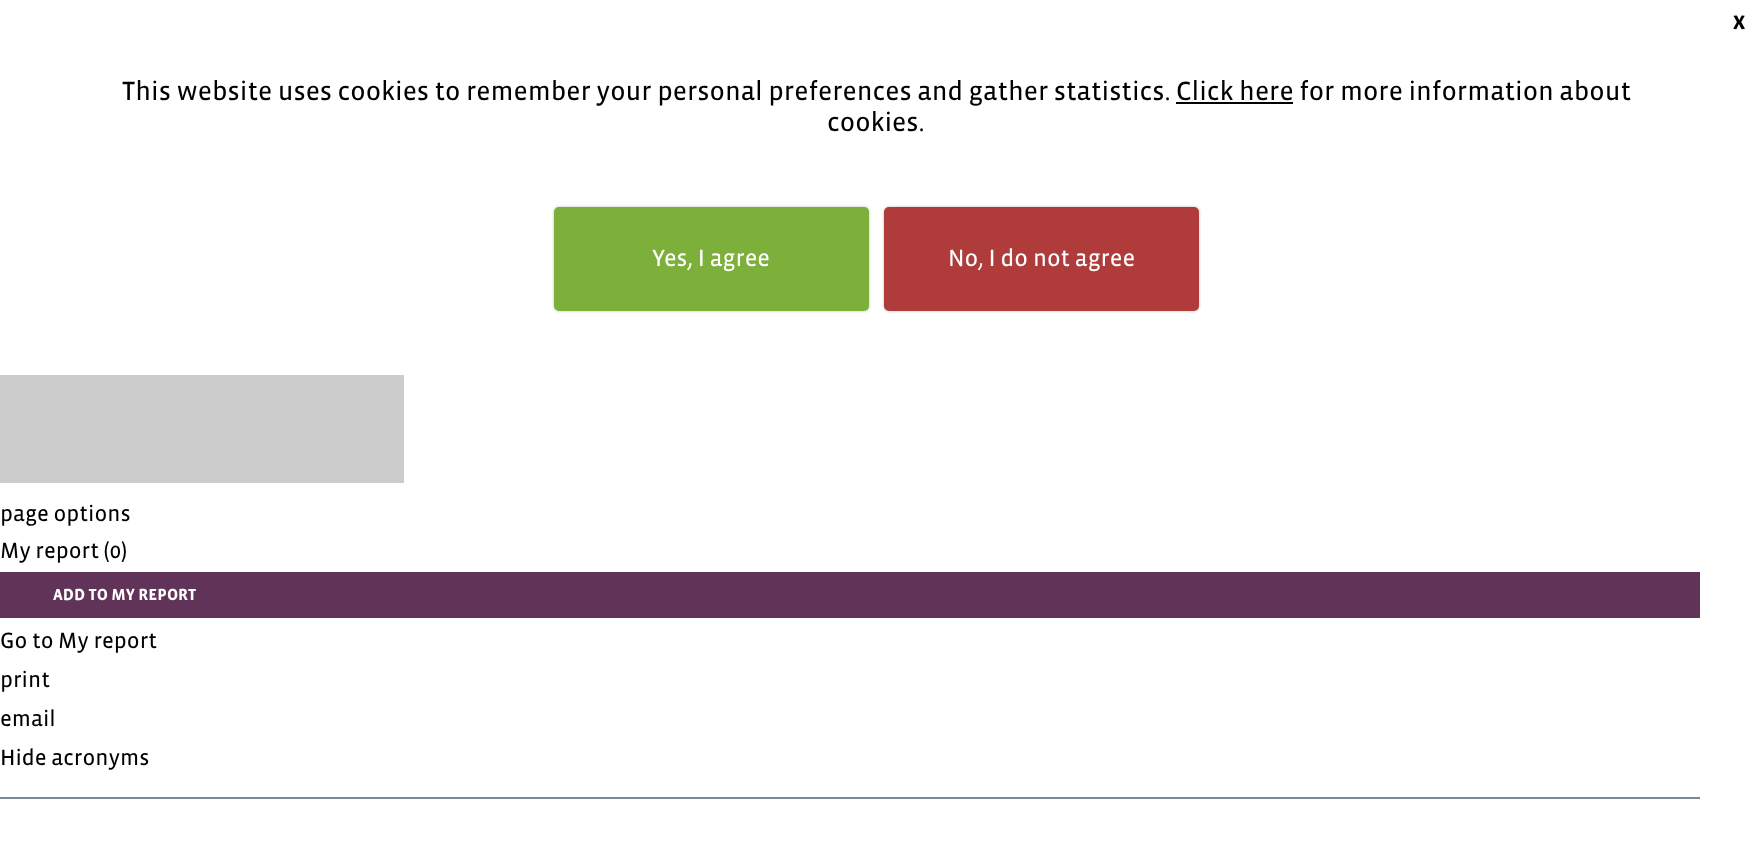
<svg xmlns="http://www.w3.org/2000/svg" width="1752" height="842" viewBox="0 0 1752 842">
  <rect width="100%" height="100%" fill="#fff"/>
  <path d="M1176 102h117v2H1176z" fill="#000"/>
  <rect x="554" y="207" width="315" height="104" rx="5" fill="#00000040" filter="blur(1.5px)"/>
  <rect x="554" y="207" width="315" height="104" rx="5" fill="#7daf3b"/>
  <rect x="884" y="207" width="315" height="104" rx="5" fill="#00000040" filter="blur(1.5px)"/>
  <rect x="884" y="207" width="315" height="104" rx="5" fill="#af3b3b"/>
  <path d="M0 375h404v108H0z" fill="#ccc"/>
  <path d="M0 797h1700v2H0z" fill="#768a96"/>
  <path d="M0 572h1700v46H0z" fill="#613359"/>
  <text x="1733" y="29" font-family="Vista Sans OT" font-size="20" font-weight="bold" fill="#000">X</text>
  <g font-family="Vista Sans OT" font-size="27" fill="#000">
    <text x="122" y="100">This website uses cookies to remember your personal preferences and gather statistics. Click here for more information about</text>
    <text x="827" y="131">cookies.</text>
  </g>
  <g font-family="Vista Sans OT" font-size="24" fill="#fff">
    <text x="652" y="266">Yes, I agree</text>
    <text x="948" y="266">No, I do not agree</text>
  </g>
  <g font-family="Vista Sans OT" font-size="22.5" fill="#000">
    <text x="0" y="521">page options</text>
    <text x="0" y="558">My report (0)</text>
  </g>
  <text x="53" y="600" font-family="Vista Sans OT" font-size="16.5" font-weight="bold" fill="#fff">ADD TO MY REPORT</text>
  <g font-family="Vista Sans OT" font-size="22.5" fill="#000">
    <text x="0" y="648">Go to My report</text>
    <text x="0" y="687">print</text>
    <text x="0" y="726">email</text>
    <text x="0" y="765">Hide acronyms</text>
  </g>
</svg>
